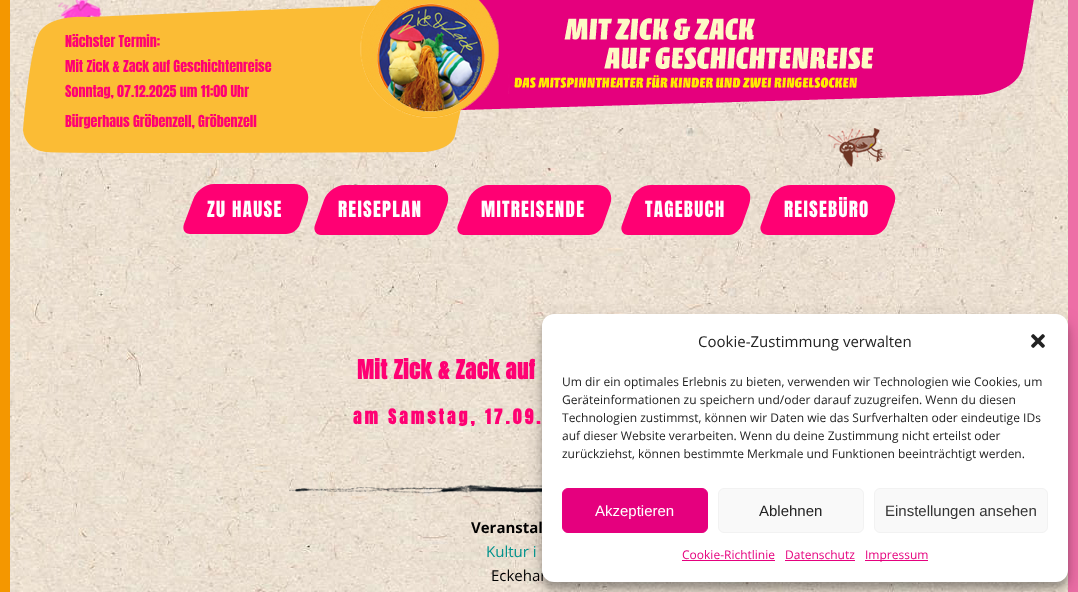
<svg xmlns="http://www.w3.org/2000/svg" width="1078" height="592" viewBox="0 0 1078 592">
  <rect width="100%" height="100%" fill="#fff"/>
  <image x="10" y="0" width="1058" height="592" href="img/1.png"/>
  <path d="M1068 0h10v592H1068z" fill="#ed6ea6"/>
  <path d="M0 0h10v592H0z" fill="#f49700"/>
  <image x="23" y="0" width="438" height="154" href="img/2.png"/>
  <image x="360" y="0" width="674" height="168" href="img/3.png"/>
  <path d="M214 184H294C305 184 311 193 307 204L300 224C298 230 292 234 286 234H190C185 234 182 230 184 224L193 200C196 191 205 184 214 184Z" fill="#ff0073"/>
  <path d="M345 185H434C445 185 451 194 447 205L439 225C437 230 431 235 426 235H321C316 235 313 230 315 225L324 200C327 192 336 185 345 185Z" fill="#ff0073"/>
  <path d="M488 185H597C608 185 614 194 610 205L603 225C601 231 595 235 589 235H465C459 235 456 231 458 225L468 200C471 192 480 185 488 185Z" fill="#ff0073"/>
  <path d="M651 185H737C748 185 753 194 749 205L742 225C740 230 734 235 729 235H628C623 235 620 230 622 225L631 200C634 191 643 185 651 185Z" fill="#ff0073"/>
  <path d="M791 185H881C892 185 898 194 894 205L887 225C885 230 879 235 873 235H768C762 235 759 230 761 225L770 200C773 191 782 185 791 185Z" fill="#ff0073"/>
  <image x="289" y="484" width="253" height="10" href="img/4.png"/>
  <rect x="542" y="320" width="526" height="268" rx="12" fill="#0000003b" filter="blur(3px)"/>
  <rect x="542" y="324" width="526" height="268" rx="12" fill="#00000030" filter="blur(10px)"/>
  <g font-family="Anton" font-size="14" fill="#ff0073">
    <text x="65" y="47">Nächster Termin:</text>
    <text x="65" y="72">Mit Zick &amp; Zack auf Geschichtenreise</text>
    <text x="65" y="97">Sonntag, 07.12.2025 um 11:00 Uhr</text>
    <text x="65" y="127">Bürgerhaus Gröbenzell, Gröbenzell</text>
  </g>
  <g font-family="Anton" font-size="19" letter-spacing="1.25" fill="#fff">
    <text x="207" y="217">ZU HAUSE</text>
    <text x="338" y="217">REISEPLAN</text>
    <text x="481" y="217">MITREISENDE</text>
    <text x="645" y="217">TAGEBUCH</text>
    <text x="784" y="217">REISEBÜRO</text>
  </g>
  <text x="357" y="379" font-family="Anton" font-size="22.5" font-weight="bold" letter-spacing="0.5" fill="#ff0073">Mit Zick &amp; Zack auf</text>
  <text x="353" y="424" font-family="Anton" font-size="17.5" font-weight="bold" letter-spacing="3.1" fill="#ff0073">am Samstag, 17.09.</text>
  <text x="471" y="533" font-family="Open Sans" font-size="15" font-weight="bold" fill="#000">Veranstal</text>
  <text x="486" y="557" font-family="Open Sans" font-size="15" fill="#00928c">Kultur i</text>
  <text x="491" y="581" font-family="Open Sans" font-size="15" fill="#000">Eckehar</text>
  <rect x="542" y="314" width="526" height="268" rx="12" fill="#fff"/>
  <text x="698" y="347" font-family="Open Sans" font-size="15" fill="#222">Cookie-Zustimmung verwalten</text>
  <image x="1031" y="334" width="14" height="14" href="img/5.png"/>
  <g font-family="Open Sans" font-size="12" fill="#222">
    <text x="562" y="386">Um dir ein optimales Erlebnis zu bieten, verwenden wir Technologien wie Cookies, um</text>
    <text x="562" y="404">Geräteinformationen zu speichern und/oder darauf zuzugreifen. Wenn du diesen</text>
    <text x="562" y="422">Technologien zustimmst, können wir Daten wie das Surfverhalten oder eindeutige IDs</text>
    <text x="562" y="440">auf dieser Website verarbeiten. Wenn du deine Zustimmung nicht erteilst oder</text>
    <text x="562" y="458">zurückziehst, können bestimmte Merkmale und Funktionen beeinträchtigt werden.</text>
  </g>
  <rect x="562.5" y="488.5" width="145" height="44" rx="5.5" fill="#e5007e" stroke="#e5007e"/>
  <text x="595" y="516" font-family="Liberation Sans" font-size="15" fill="#fff">Akzeptieren</text>
  <rect x="718.5" y="488.5" width="145" height="44" rx="5.5" fill="#f9f9f9" stroke="#f2f2f2"/>
  <text x="759" y="516" font-family="Liberation Sans" font-size="15" fill="#222">Ablehnen</text>
  <rect x="874.5" y="488.5" width="173" height="44" rx="5.5" fill="#f9f9f9" stroke="#f2f2f2"/>
  <text x="885" y="516" font-family="Liberation Sans" font-size="15" fill="#333">Einstellungen ansehen</text>
  <text x="682" y="559" font-family="Open Sans" font-size="12" fill="#e5007e">Cookie-Richtlinie</text>
  <path d="M682 560h93v1H682z" fill="#e5007e"/>
  <text x="785" y="559" font-family="Open Sans" font-size="12" fill="#e5007e">Datenschutz</text>
  <path d="M785 560h70v1H785z" fill="#e5007e"/>
  <path d="M865 560h63v1H865z" fill="#e5007e"/>
  <text x="865" y="559" font-family="Open Sans" font-size="12" fill="#e5007e">Impressum</text>
</svg>
